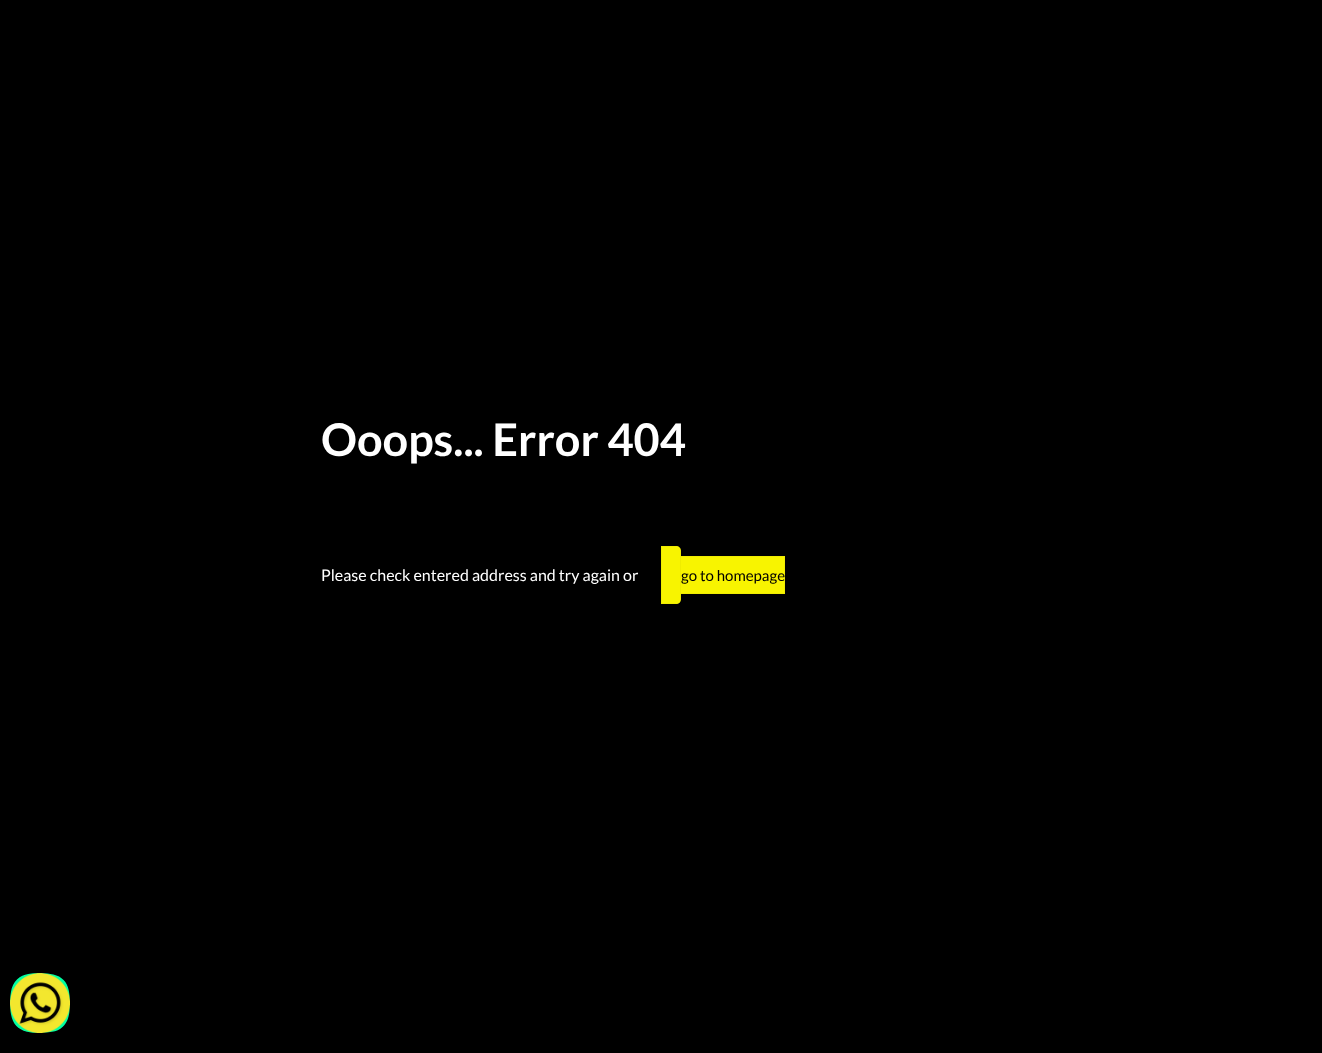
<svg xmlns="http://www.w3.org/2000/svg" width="1322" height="1053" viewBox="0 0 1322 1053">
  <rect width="100%" height="100%" fill="#000"/>
  <path d="M681 556h104v38H681z" fill="#f8f400"/>
  <path d="M661.5 556.5h123v37H661.5z" fill="none" stroke="#00000008"/>
  <path d="M661 546H676C679 546 681 548 681 551V599C681 602 679 604 676 604H661Z" fill="#f8f400"/>
  <path d="M661.5 546.5h19v57H661.5z" fill="none" stroke="#00000008"/>
  <image x="10" y="973" width="60" height="60" href="img/1.png"/>
  <text x="321" y="456" font-family="Lato" font-size="45" font-weight="bold" fill="#fff">Ooops... Error 404</text>
  <text x="321" y="581" font-family="Lato" font-size="16" fill="#fff">Please check entered address and try again or</text>
  <text x="681" y="581" font-family="Lato" font-size="15" fill="#000">go to homepage</text>
</svg>
